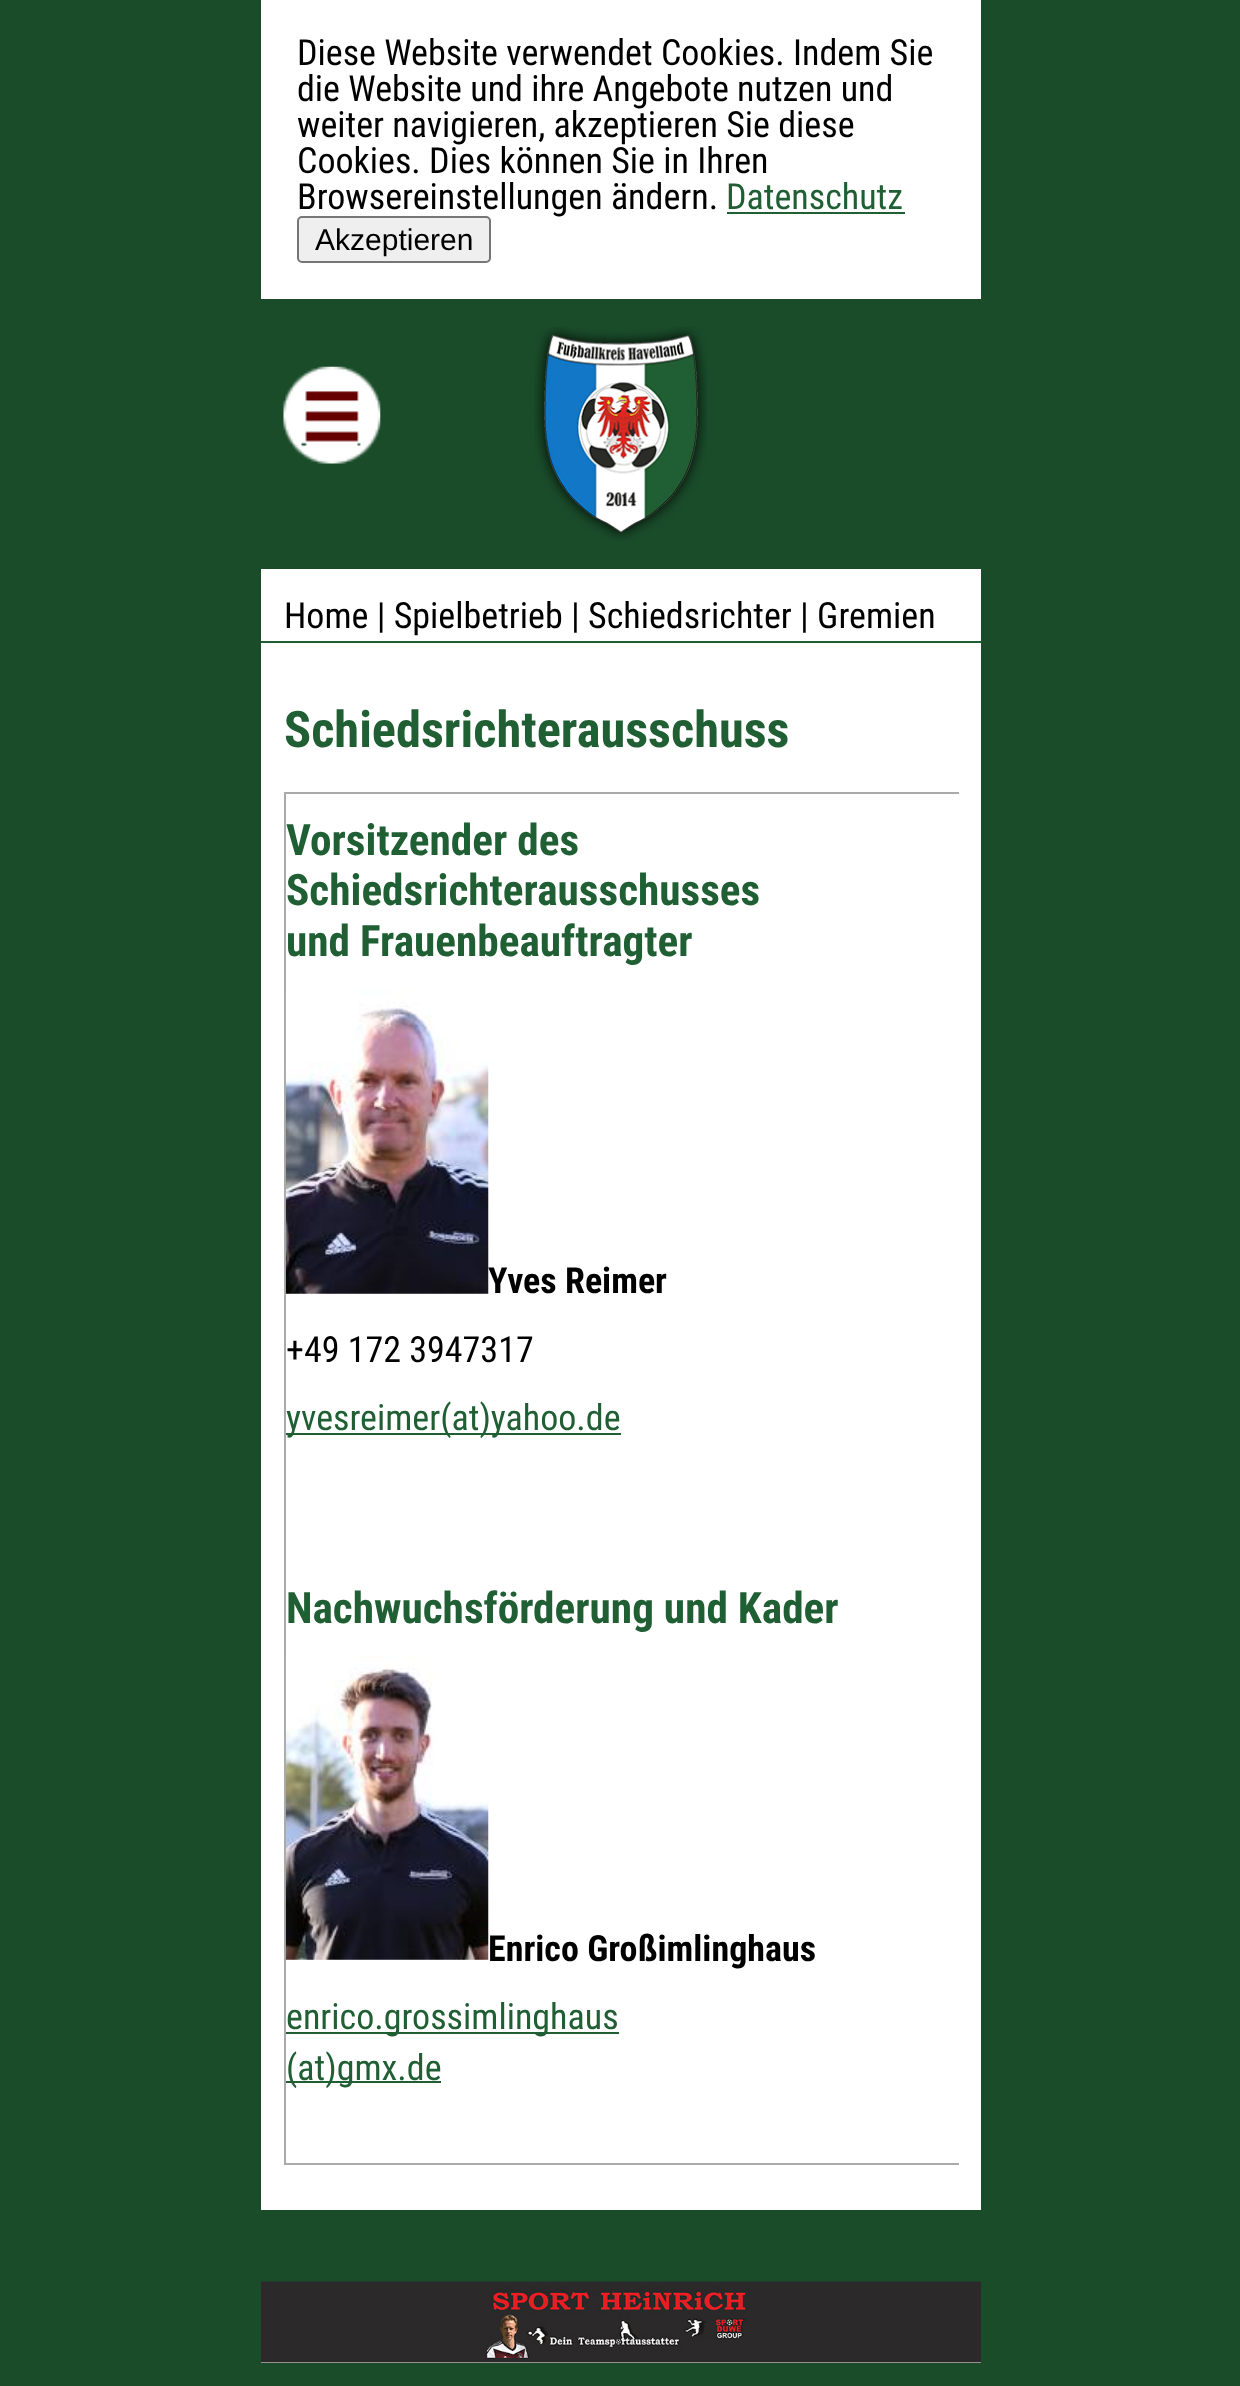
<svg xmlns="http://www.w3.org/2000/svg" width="1240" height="2386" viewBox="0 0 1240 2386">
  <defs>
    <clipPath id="clip1"><path d="M284 666h675v1521H284z"/></clipPath>
  </defs>
  <rect width="100%" height="100%" fill="#1a4c2a"/>
  <path d="M261 0h720v299H261z" fill="#fff"/>
  <path d="M727 212h178v2H727z" fill="#205f34"/>
  <image x="283" y="366" width="98" height="98" href="img/1.png"/>
  <image x="534" y="327" width="173" height="213" href="img/2.png"/>
  <path d="M261 569h720v1641H261z" fill="#fff"/>
  <path d="M261 641h720v2H261z" fill="#205f34"/>
  <g clip-path="url(#clip1)">
    <path d="M285 793h677v1371H285z" fill="none" stroke="#aaa" stroke-width="2"/>
  </g>
  <image x="285" y="990" width="204" height="304" href="img/3.png"/>
  <path d="M286 1433h335v2H286z" fill="#205f34"/>
  <image x="285" y="1656" width="204" height="304" href="img/4.png"/>
  <path d="M286 2032h333v2H286z" fill="#205f34"/>
  <path d="M286 2081h155v2H286z" fill="#205f34"/>
  <path d="M261 2362h720v1H261z" fill="#fff"/>
  <image x="261" y="2281" width="720" height="82" href="img/5.png"/>
  <g font-family="Roboto Condensed" font-size="36" fill="#000">
    <text x="297" y="65">Diese Website verwendet Cookies. Indem Sie</text>
    <text x="297" y="101">die Website und ihre Angebote nutzen und</text>
    <text x="297" y="137">weiter navigieren, akzeptieren Sie diese</text>
    <text x="297" y="173">Cookies. Dies können Sie in Ihren</text>
    <text x="297" y="209">Browsereinstellungen ändern.</text>
  </g>
  <text x="726" y="209" font-family="Roboto Condensed" font-size="36" fill="#205f34">Datenschutz</text>
  <rect x="298" y="217" width="192" height="45" rx="4" fill="#efefef" stroke="#767676" stroke-width="2"/>
  <text x="315" y="250" font-family="Liberation Sans" font-size="30" fill="#000">Akzeptieren</text>
  <text x="284" y="628" font-family="Roboto Condensed" font-size="36" fill="#000">Home | Spielbetrieb | Schiedsrichter | Gremien</text>
  <text x="284" y="747" font-family="Roboto Condensed" font-size="50.4" font-weight="bold" fill="#205f34">Schiedsrichterausschuss</text>
  <g font-family="Roboto Condensed" font-size="43.25" font-weight="bold" fill="#205f34">
    <text x="286" y="855">Vorsitzender des</text>
    <text x="286" y="905">Schiedsrichterausschusses</text>
    <text x="286" y="956">und Frauenbeauftragter</text>
  </g>
  <text x="488" y="1293" font-family="Roboto Condensed" font-size="36" font-weight="bold" fill="#000">Yves Reimer</text>
  <text x="286" y="1362" font-family="Roboto Condensed" font-size="36" fill="#000">+49 172 3947317</text>
  <text x="286" y="1430" font-family="Roboto Condensed" font-size="36" fill="#205f34">yvesreimer(at)yahoo.de</text>
  <text x="286" y="1623" font-family="Roboto Condensed" font-size="43.25" font-weight="bold" fill="#205f34">Nachwuchsförderung und Kader</text>
  <text x="488" y="1961" font-family="Roboto Condensed" font-size="36" font-weight="bold" fill="#000">Enrico Großimlinghaus</text>
  <g font-family="Roboto Condensed" font-size="36" fill="#205f34">
    <text x="286" y="2029">enrico.grossimlinghaus</text>
    <text x="286" y="2080">(at)gmx.de</text>
  </g>
</svg>
